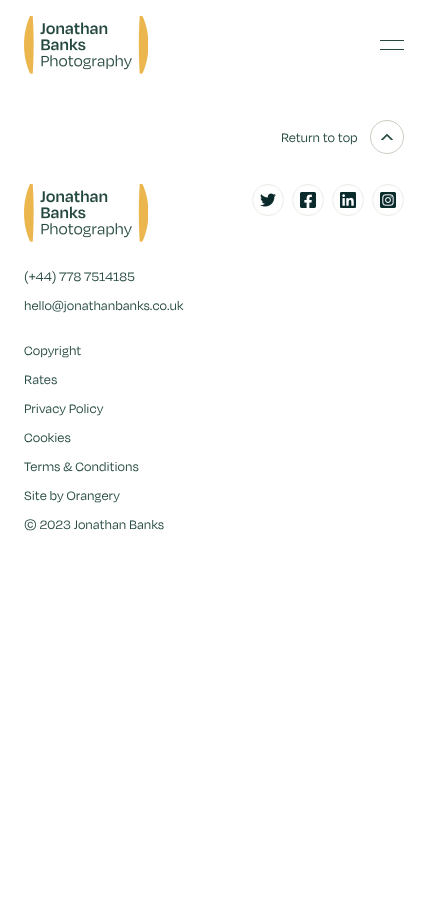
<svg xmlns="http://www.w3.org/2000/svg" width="428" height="911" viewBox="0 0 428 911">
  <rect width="100%" height="100%" fill="#fff"/>
  <image x="24" y="16" width="124" height="58" href="img/1.png"/>
  <path d="M380 40h24v1H380z" fill="#254940"/>
  <path d="M380 49h24v1H380z" fill="#254940"/>
  <circle cx="387" cy="137" r="16.5" fill="none" stroke="#cecbc1"/>
  <image x="381" y="134" width="12" height="6" href="img/2.png"/>
  <image x="24" y="184" width="124" height="58" href="img/1.png"/>
  <circle cx="268" cy="200" r="15.5" fill="none" stroke="#edebe5"/>
  <image x="260" y="193" width="16" height="14" href="img/3.png"/>
  <circle cx="308" cy="200" r="15.5" fill="none" stroke="#edebe5"/>
  <image x="300" y="192" width="16" height="16" href="img/4.png"/>
  <circle cx="348" cy="200" r="15.5" fill="none" stroke="#edebe5"/>
  <image x="340" y="192" width="16" height="16" href="img/5.png"/>
  <circle cx="388" cy="200" r="15.5" fill="none" stroke="#edebe5"/>
  <image x="380" y="192" width="16" height="16" href="img/6.png"/>
  <g font-family="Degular" font-size="14" fill="#254940">
    <text x="281" y="142">Return to top</text>
    <text x="24" y="281">(+44) 778 7514185</text>
    <text x="24" y="310">hello@jonathanbanks.co.uk</text>
    <text x="24" y="355">Copyright</text>
    <text x="24" y="384">Rates</text>
    <text x="24" y="413">Privacy Policy</text>
    <text x="24" y="442">Cookies</text>
    <text x="24" y="471">Terms &amp; Conditions</text>
    <text x="24" y="500">Site by Orangery</text>
    <text x="24" y="529">© 2023 Jonathan Banks</text>
  </g>
</svg>
